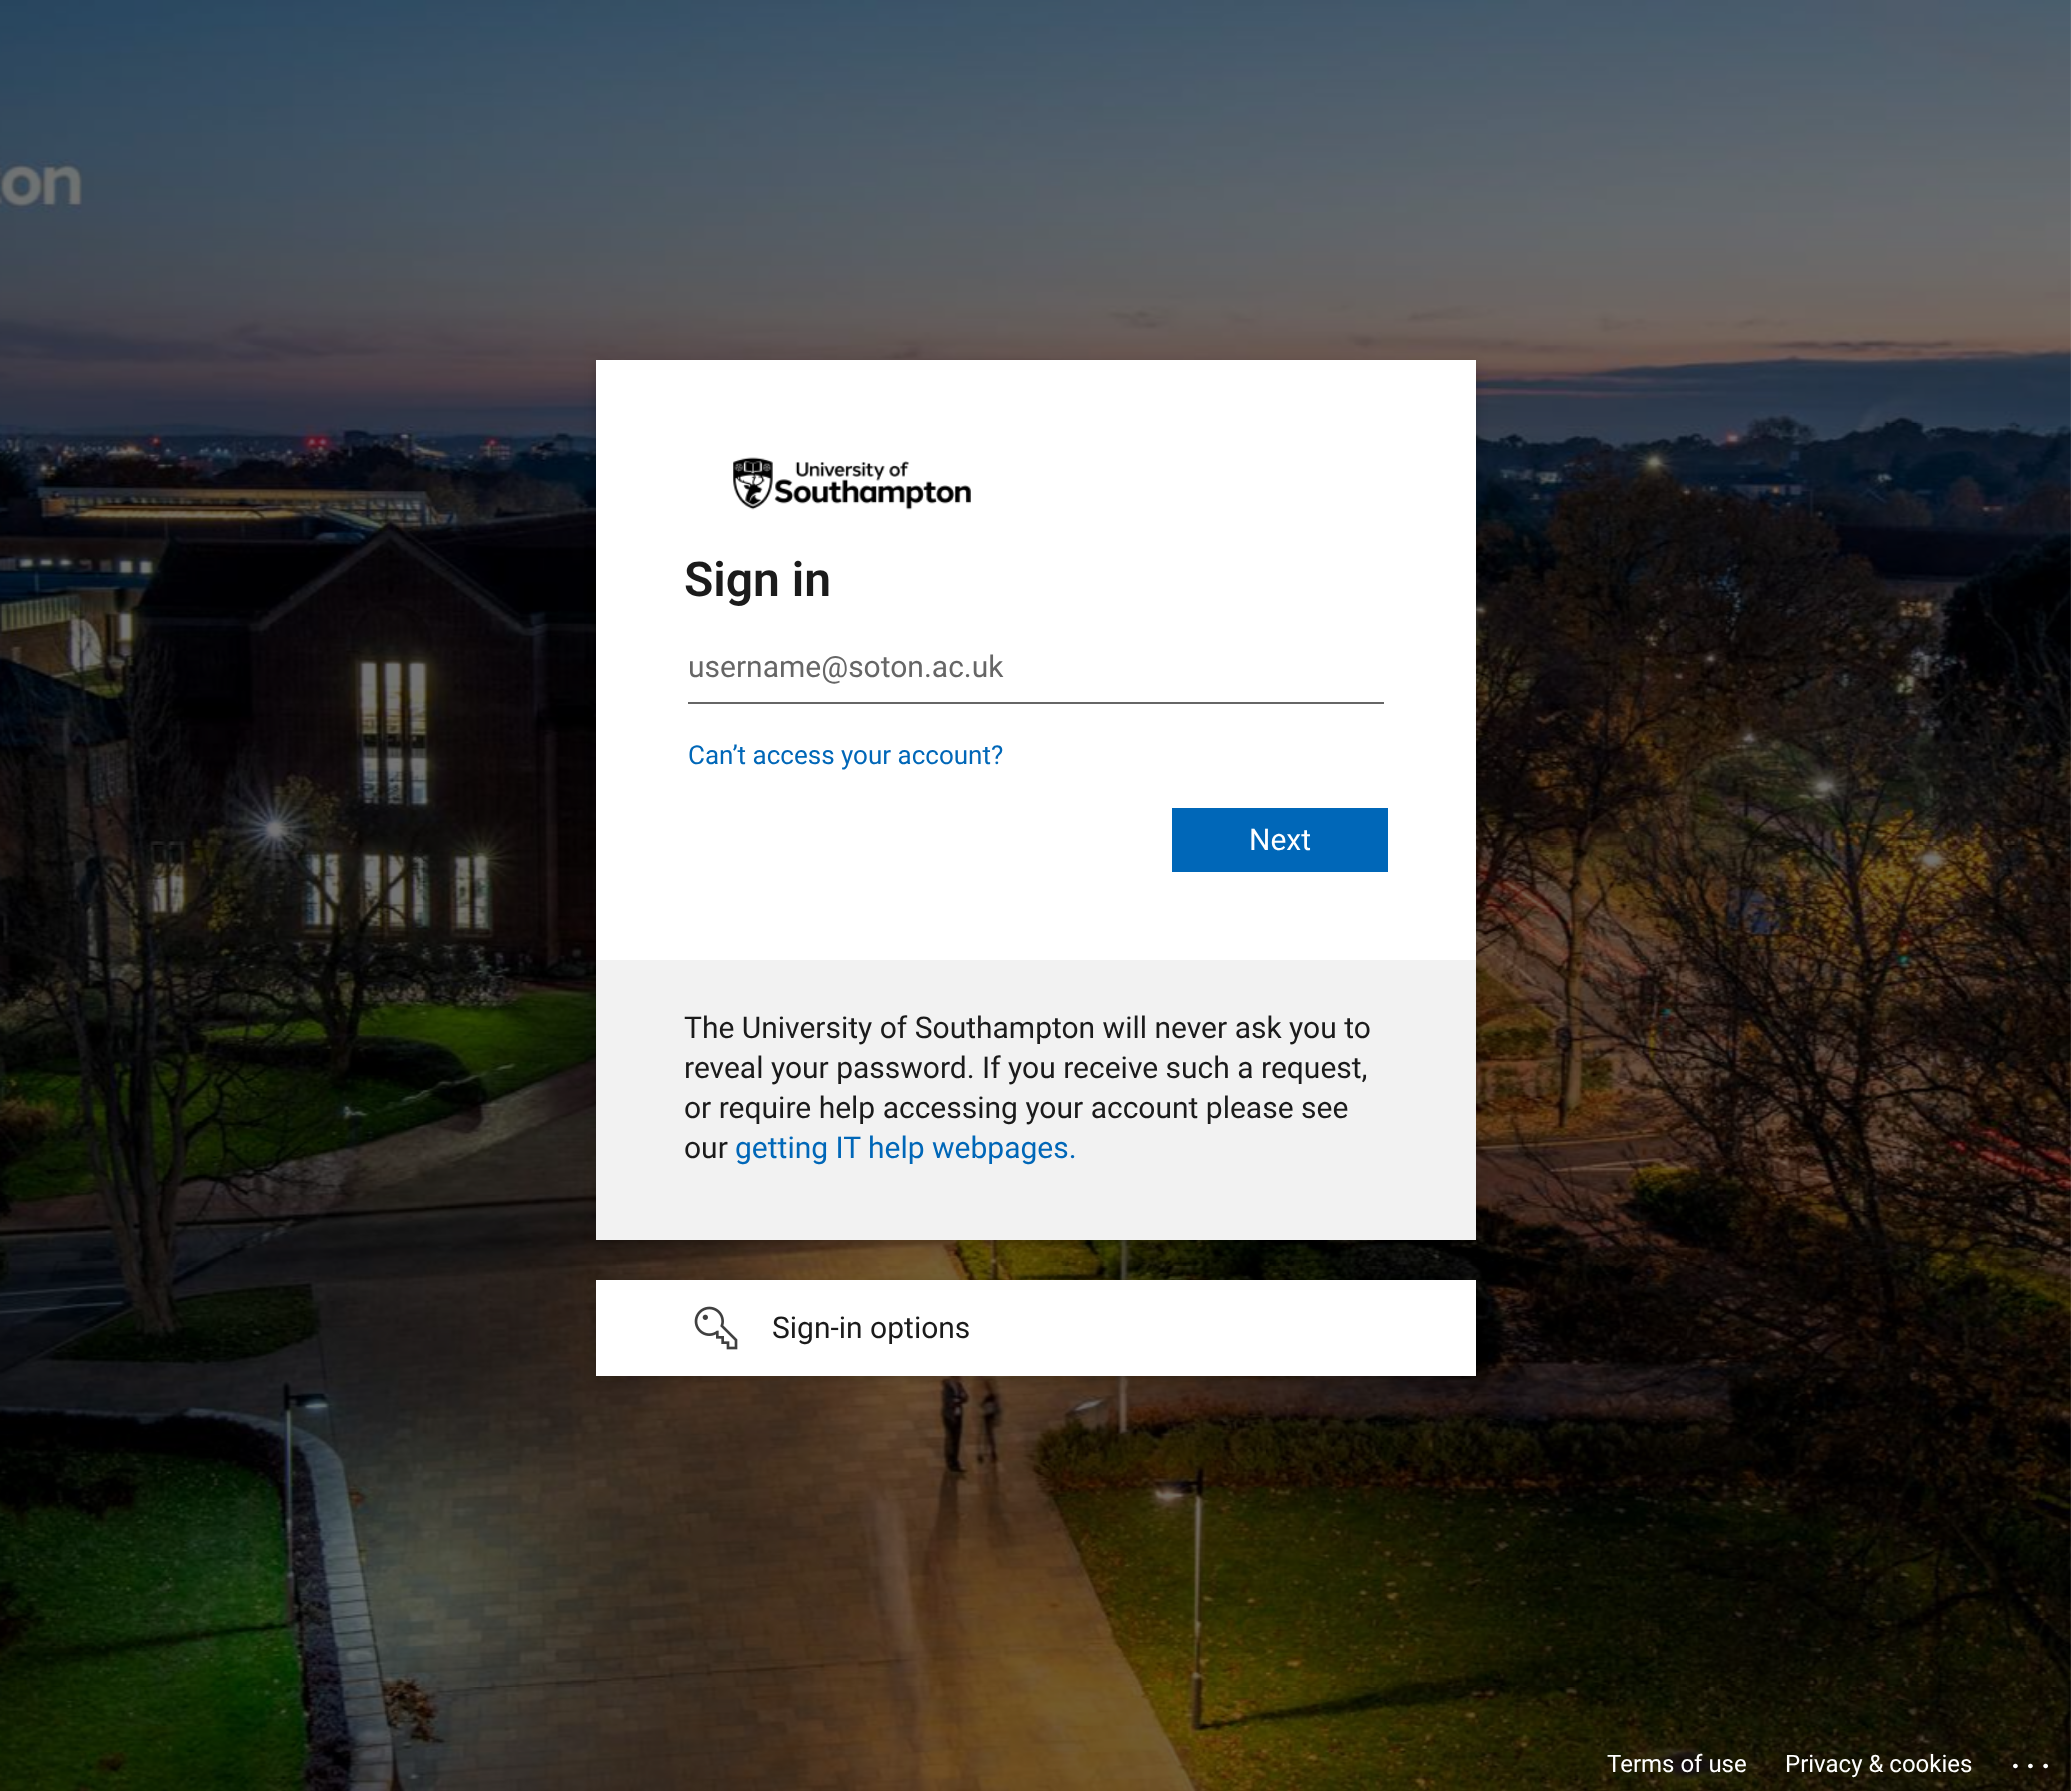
<svg xmlns="http://www.w3.org/2000/svg" width="2071" height="1791" viewBox="0 0 2071 1791">
  <rect width="100%" height="100%" fill="#fff"/>
  <image x="0" y="0" width="2071" height="1791" href="img/1.png"/>
  <path d="M596 364h880v880H596z" fill="#00000033" filter="blur(6px)"/>
  <path d="M596 360h880v600H596z" fill="#fff"/>
  <image x="733" y="457" width="238" height="53" href="img/2.png"/>
  <path d="M688 702h696v2H688z" fill="#666"/>
  <path d="M1172 808h216v64H1172z" fill="#0067b8"/>
  <path d="M596 960h880v280H596z" fill="#f2f2f2"/>
  <path d="M596 1284h880v96H596z" fill="#00000033" filter="blur(6px)"/>
  <path d="M596 1280h880v96H596z" fill="#fff"/>
  <image x="694" y="1306" width="44" height="44" href="img/3.png"/>
  <text x="684" y="596" font-family="Roboto" font-size="48" font-weight="600" fill="#1b1b1b">Sign in</text>
  <text x="688" y="677" font-family="Roboto" font-size="30" fill="#666">username@soton.ac.uk</text>
  <text x="688" y="764" font-family="Roboto" font-size="26" fill="#0067b8">Can’t access your account?</text>
  <text x="1249" y="850" font-family="Roboto" font-size="30" fill="#fff">Next</text>
  <g font-family="Roboto" font-size="30" fill="#1b1b1b">
    <text x="684" y="1038">The University of Southampton will never ask you to</text>
    <text x="684" y="1078">reveal your password. If you receive such a request,</text>
    <text x="684" y="1118">or require help accessing your account please see</text>
    <text x="684" y="1158">our</text>
  </g>
  <text x="735" y="1158" font-family="Roboto" font-size="30" fill="#0067b8">getting IT help webpages.</text>
  <text x="772" y="1338" font-family="Roboto" font-size="30" fill="#1b1b1b">Sign-in options</text>
  <g font-family="Roboto" font-size="24" fill="#fff">
    <text x="1607" y="1772">Terms of use</text>
    <text x="1785" y="1772">Privacy &amp; cookies</text>
  </g>
  <text x="2011" y="1768" font-family="Roboto" font-size="32" font-weight="600" letter-spacing="6" fill="#fff">...</text>
</svg>
